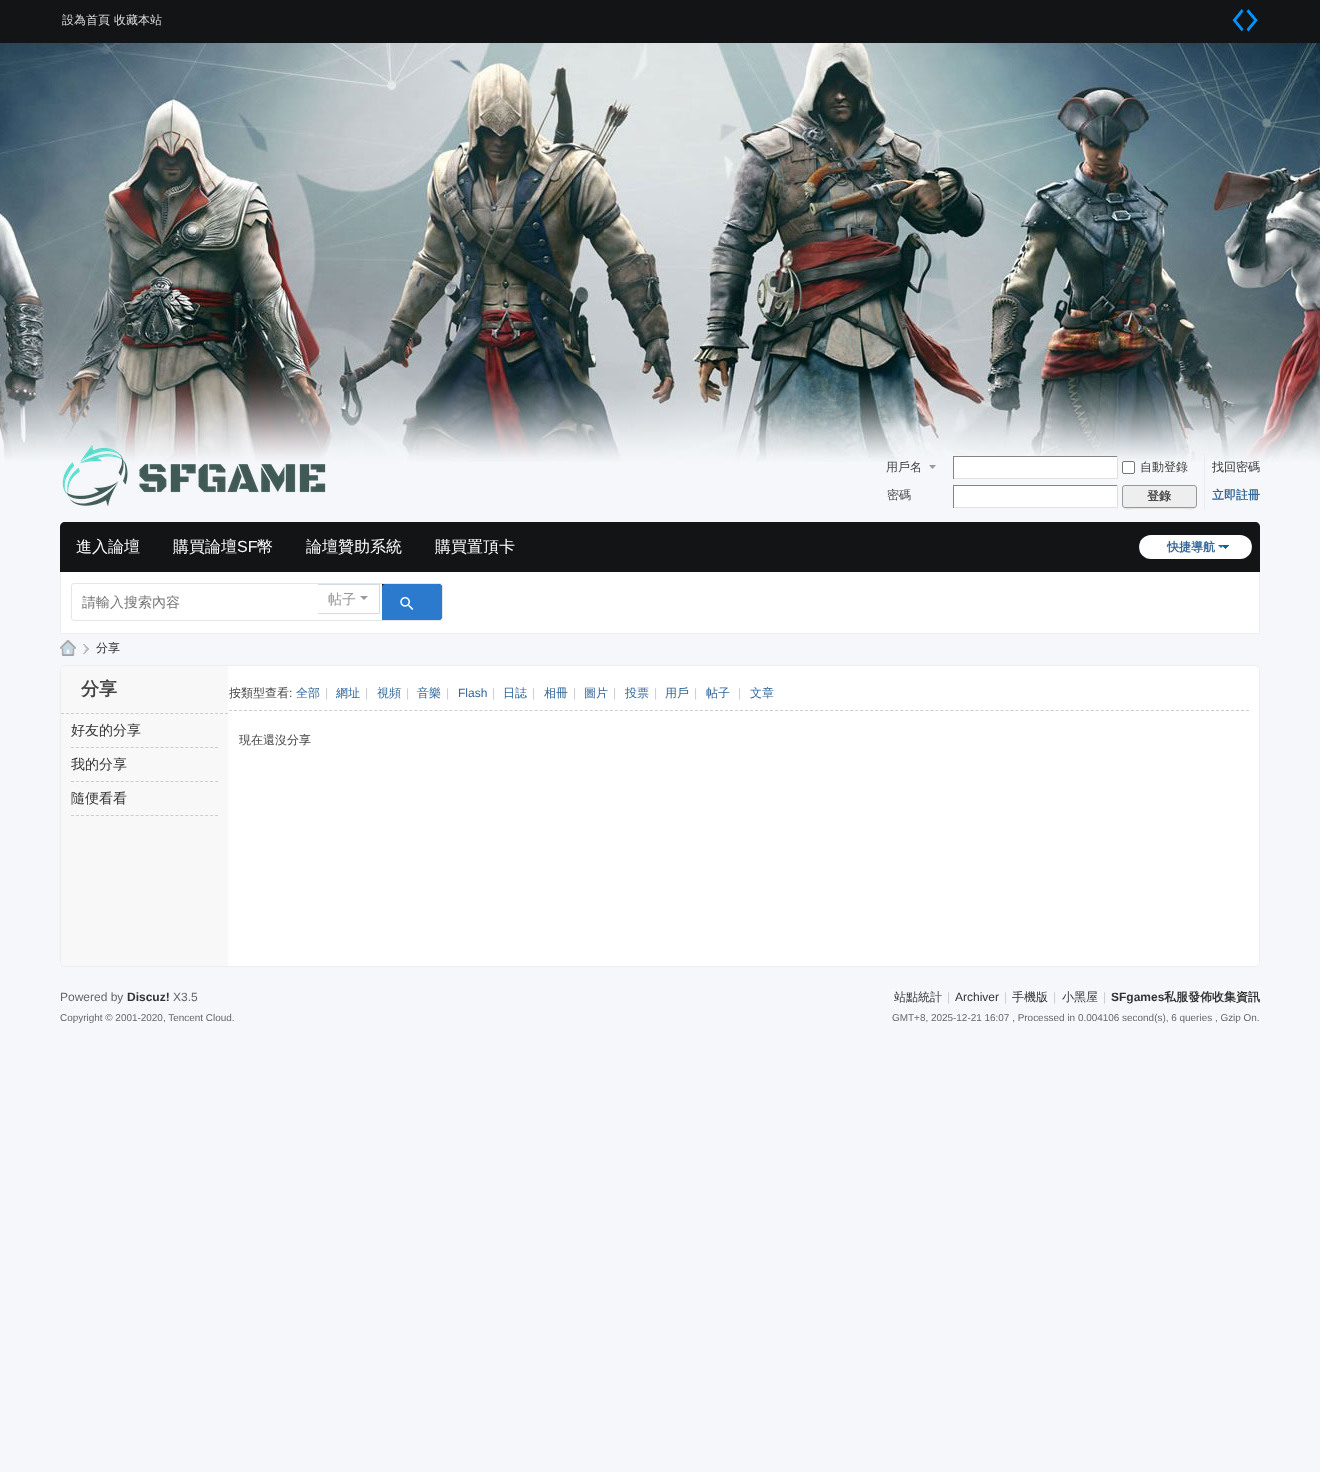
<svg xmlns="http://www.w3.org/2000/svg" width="1320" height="1472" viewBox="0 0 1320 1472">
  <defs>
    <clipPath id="clip1"><rect x="72" y="584" width="370" height="36" rx="2"/></clipPath>
  </defs>
  <rect width="100%" height="100%" fill="#f5f7fa"/>
  <image x="0" y="43" width="1320" height="419" href="img/1.png"/>
  <path d="M0 0h1320v43H0z" fill="#121416"/>
  <image x="1232" y="9" width="26" height="23" href="img/2.png"/>
  <image x="62" y="445" width="264" height="61" href="img/3.png"/>
  <path d="M936 465H929L932.5 469Z" fill="#999"/>
  <path d="M954 457h163v21H954z" fill="#fff"/>
  <path d="M953 456h165v1H953z" fill="#848484"/>
  <path d="M1117 456h1v23H1117z" fill="#e0e0e0"/>
  <path d="M953 478h165v1H953z" fill="#e0e0e0"/>
  <path d="M953 456h1v23H953z" fill="#848484"/>
  <rect x="1122.5" y="461.5" width="12" height="12" rx="1.5" fill="#fff" stroke="#767676"/>
  <path d="M954 486h163v21H954z" fill="#fff"/>
  <path d="M953 485h165v1H953z" fill="#848484"/>
  <path d="M1117 485h1v23H1117z" fill="#e0e0e0"/>
  <path d="M953 507h165v1H953z" fill="#e0e0e0"/>
  <path d="M953 485h1v23H953z" fill="#848484"/>
  <path d="M1204 453h1v57H1204z" fill="#e5edf2"/>
  <path d="M1122 505C1122 512 1132 509 1136 509H1182C1187 509 1197 512 1197 505C1197 507 1196 508 1194 508H1125C1123 508 1122 507 1122 505Z" fill="#e5e5e5"/>
  <rect x="1122.5" y="485.5" width="74" height="22" rx="2.5" fill="#eee" stroke="#999"/>
  <path d="M65 522H1255C1258 522 1260 524 1260 527V572H60V527C60 524 62 522 65 522Z" fill="#121416"/>
  <image x="1139" y="535" width="113" height="24" href="img/4.png"/>
  <path d="M1218 545H1224L1221 548Z" fill="#369"/>
  <path d="M61 572h1198v61H61z" fill="#fff"/>
  <path d="M1259 572h1v62H1259z" fill="#eee"/>
  <path d="M60 633h1200v1H60z" fill="#eee"/>
  <path d="M60 572h1v62H60z" fill="#eee"/>
  <rect x="71.5" y="583.5" width="371" height="37" rx="2.5" fill="none" stroke="#e6e6e6"/>
  <path d="M318 584h62v1H318z" fill="#cfdee3"/>
  <path d="M379 584h1v30H379z" fill="#cfdee3"/>
  <path d="M318 613h62v1H318z" fill="#cfdee3"/>
  <path d="M360 596H368L364 600Z" fill="#999"/>
  <g clip-path="url(#clip1)">
    <path d="M382 584H439C440.5 584 442 585.5 442 587V617C442 618.5 440.5 620 439 620H382Z" fill="#121416"/>
  </g>
  <path d="M385 584H439C440.5 584 442 585.5 442 587V617C442 618.5 440.5 620 439 620H382V587C382 585.5 383.5 584 385 584Z" fill="#2b7acd"/>
  <image x="400" y="597" width="14" height="13" href="img/5.png"/>
  <image x="60" y="640" width="16" height="16" href="img/6.png"/>
  <image x="61" y="642" width="14" height="12" href="img/7.png"/>
  <image x="83" y="644" width="6" height="10" href="img/8.png"/>
  <rect x="60" y="665" width="1200" height="302" rx="5" fill="#fff"/>
  <path d="M61 665h167v302H61z" fill="#f8f8f8"/>
  <rect x="60.5" y="665.5" width="1199" height="301" rx="4.5" fill="none" stroke="#eee"/>
  <path d="M61 713.5H228" fill="none" stroke="#cdcdcd" stroke-dasharray="3 1.97"/>
  <path d="M71 747.5H218" fill="none" stroke="#ccc" stroke-dasharray="3 1.97"/>
  <path d="M71 781.5H218" fill="none" stroke="#ccc" stroke-dasharray="3 1.97"/>
  <path d="M71 815.5H218" fill="none" stroke="#ccc" stroke-dasharray="3 1.97"/>
  <path d="M229 710.5H1249" fill="none" stroke="#cdcdcd" stroke-dasharray="3 2.01"/>
  <g font-family="WenQuanYi Zen Hei" font-size="12" font-weight="500" fill="#ddd">
    <text x="62" y="24">設為首頁</text>
    <text x="114" y="24">收藏本站</text>
  </g>
  <g font-family="WenQuanYi Zen Hei" font-size="12" font-weight="500" fill="#444">
    <text x="886" y="471">用戶名</text>
    <text x="1140" y="471">自動登錄</text>
  </g>
  <text x="1212" y="471" font-family="WenQuanYi Zen Hei" font-size="12" font-weight="500" fill="#333">找回密碼</text>
  <text x="887" y="499" font-family="WenQuanYi Zen Hei" font-size="12" font-weight="500" fill="#444">密碼</text>
  <text x="1147" y="500" font-family="WenQuanYi Zen Hei" font-size="12" font-weight="bold" fill="#444">登錄</text>
  <text x="1212" y="499" font-family="WenQuanYi Zen Hei" font-size="12" font-weight="bold" fill="#369">立即註冊</text>
  <g font-family="WenQuanYi Zen Hei" font-size="16" font-weight="500" fill="#fff">
    <text x="76" y="552">進入論壇</text>
    <text x="173" y="552">購買論壇</text>
  </g>
  <text x="237" y="552" font-family="Liberation Sans" font-size="16" fill="#fff">SF</text>
  <g font-family="WenQuanYi Zen Hei" font-size="16" font-weight="500" fill="#fff">
    <text x="257" y="552">幣</text>
    <text x="306" y="552">論壇贊助系統</text>
    <text x="435" y="552">購買置頂卡</text>
  </g>
  <text x="1167" y="551" font-family="WenQuanYi Zen Hei" font-size="12" font-weight="bold" fill="#369">快捷導航</text>
  <text x="82" y="607" font-family="WenQuanYi Zen Hei" font-size="14" font-weight="500" fill="#757575">請輸入搜索內容</text>
  <text x="328" y="604" font-family="WenQuanYi Zen Hei" font-size="14" font-weight="500" fill="#999">帖子</text>
  <text x="84" y="652" font-family="Liberation Sans" font-size="12" fill="#bdbdbd">›</text>
  <text x="96" y="652" font-family="WenQuanYi Zen Hei" font-size="12" font-weight="500" fill="#333">分享</text>
  <text x="81" y="695" font-family="WenQuanYi Zen Hei" font-size="18" font-weight="bold" fill="#444">分享</text>
  <g font-family="WenQuanYi Zen Hei" font-size="14" font-weight="500" fill="#333">
    <text x="71" y="735">好友的分享</text>
    <text x="71" y="769">我的分享</text>
    <text x="71" y="803">隨便看看</text>
  </g>
  <text x="229" y="697" font-family="WenQuanYi Zen Hei" font-size="12" font-weight="500" fill="#444">按類型查看</text>
  <text x="289" y="697" font-family="Liberation Sans" font-size="12" fill="#444">:</text>
  <text x="296" y="697" font-family="WenQuanYi Zen Hei" font-size="12" font-weight="500" fill="#369">全部</text>
  <text x="325" y="697" font-family="Liberation Sans" font-size="12" fill="#ccc">|</text>
  <text x="336" y="697" font-family="WenQuanYi Zen Hei" font-size="12" font-weight="500" fill="#369">網址</text>
  <text x="365" y="697" font-family="Liberation Sans" font-size="12" fill="#ccc">|</text>
  <text x="377" y="697" font-family="WenQuanYi Zen Hei" font-size="12" font-weight="500" fill="#369">視頻</text>
  <text x="406" y="697" font-family="Liberation Sans" font-size="12" fill="#ccc">|</text>
  <text x="417" y="697" font-family="WenQuanYi Zen Hei" font-size="12" font-weight="500" fill="#369">音樂</text>
  <text x="446" y="697" font-family="Liberation Sans" font-size="12" fill="#ccc">|</text>
  <text x="458" y="697" font-family="Liberation Sans" font-size="12" fill="#369">Flash</text>
  <text x="492" y="697" font-family="Liberation Sans" font-size="12" fill="#ccc">|</text>
  <text x="503" y="697" font-family="WenQuanYi Zen Hei" font-size="12" font-weight="500" fill="#369">日誌</text>
  <text x="532" y="697" font-family="Liberation Sans" font-size="12" fill="#ccc">|</text>
  <text x="544" y="697" font-family="WenQuanYi Zen Hei" font-size="12" font-weight="500" fill="#369">相冊</text>
  <text x="573" y="697" font-family="Liberation Sans" font-size="12" fill="#ccc">|</text>
  <text x="584" y="697" font-family="WenQuanYi Zen Hei" font-size="12" font-weight="500" fill="#369">圖片</text>
  <text x="613" y="697" font-family="Liberation Sans" font-size="12" fill="#ccc">|</text>
  <text x="625" y="697" font-family="WenQuanYi Zen Hei" font-size="12" font-weight="500" fill="#369">投票</text>
  <text x="654" y="697" font-family="Liberation Sans" font-size="12" fill="#ccc">|</text>
  <text x="665" y="697" font-family="WenQuanYi Zen Hei" font-size="12" font-weight="500" fill="#369">用戶</text>
  <text x="694" y="697" font-family="Liberation Sans" font-size="12" fill="#ccc">|</text>
  <text x="706" y="697" font-family="WenQuanYi Zen Hei" font-size="12" font-weight="500" fill="#369">帖子</text>
  <text x="738" y="697" font-family="Liberation Sans" font-size="12" fill="#ccc">|</text>
  <text x="750" y="697" font-family="WenQuanYi Zen Hei" font-size="12" font-weight="500" fill="#369">文章</text>
  <text x="239" y="744" font-family="WenQuanYi Zen Hei" font-size="12" font-weight="500" fill="#444">現在還沒分享</text>
  <text x="60" y="1001" font-family="Liberation Sans" font-size="12" fill="#666">Powered by</text>
  <text x="127" y="1001" font-family="Liberation Sans" font-size="12" font-weight="bold" fill="#333">Discuz!</text>
  <text x="173" y="1001" font-family="Liberation Sans" font-size="12" fill="#666">X3.5</text>
  <text x="60" y="1021" font-family="Liberation Sans" font-size="9.95" fill="#666">Copyright © 2001-2020, Tencent Cloud.</text>
  <text x="894" y="1001" font-family="WenQuanYi Zen Hei" font-size="12" font-weight="500" fill="#333">站點統計</text>
  <text x="947" y="1001" font-family="Liberation Sans" font-size="12" fill="#ccc">|</text>
  <text x="955" y="1001" font-family="Liberation Sans" font-size="12" fill="#333">Archiver</text>
  <text x="1004" y="1001" font-family="Liberation Sans" font-size="12" fill="#ccc">|</text>
  <text x="1012" y="1001" font-family="WenQuanYi Zen Hei" font-size="12" font-weight="500" fill="#333">手機版</text>
  <text x="1053" y="1001" font-family="Liberation Sans" font-size="12" fill="#ccc">|</text>
  <text x="1062" y="1001" font-family="WenQuanYi Zen Hei" font-size="12" font-weight="500" fill="#333">小黑屋</text>
  <text x="1103" y="1001" font-family="Liberation Sans" font-size="12" fill="#ccc">|</text>
  <text x="1111" y="1001" font-family="Liberation Sans" font-size="12" font-weight="bold" fill="#333">SFgames</text>
  <text x="1164" y="1001" font-family="WenQuanYi Zen Hei" font-size="12" font-weight="bold" fill="#333">私服發佈收集資訊</text>
  <text x="892" y="1021" font-family="Liberation Sans" font-size="9.95" fill="#666">GMT+8, 2025-12-21 16:07 , Processed in 0.004106 second(s), 6 queries , Gzip On.</text>
</svg>
